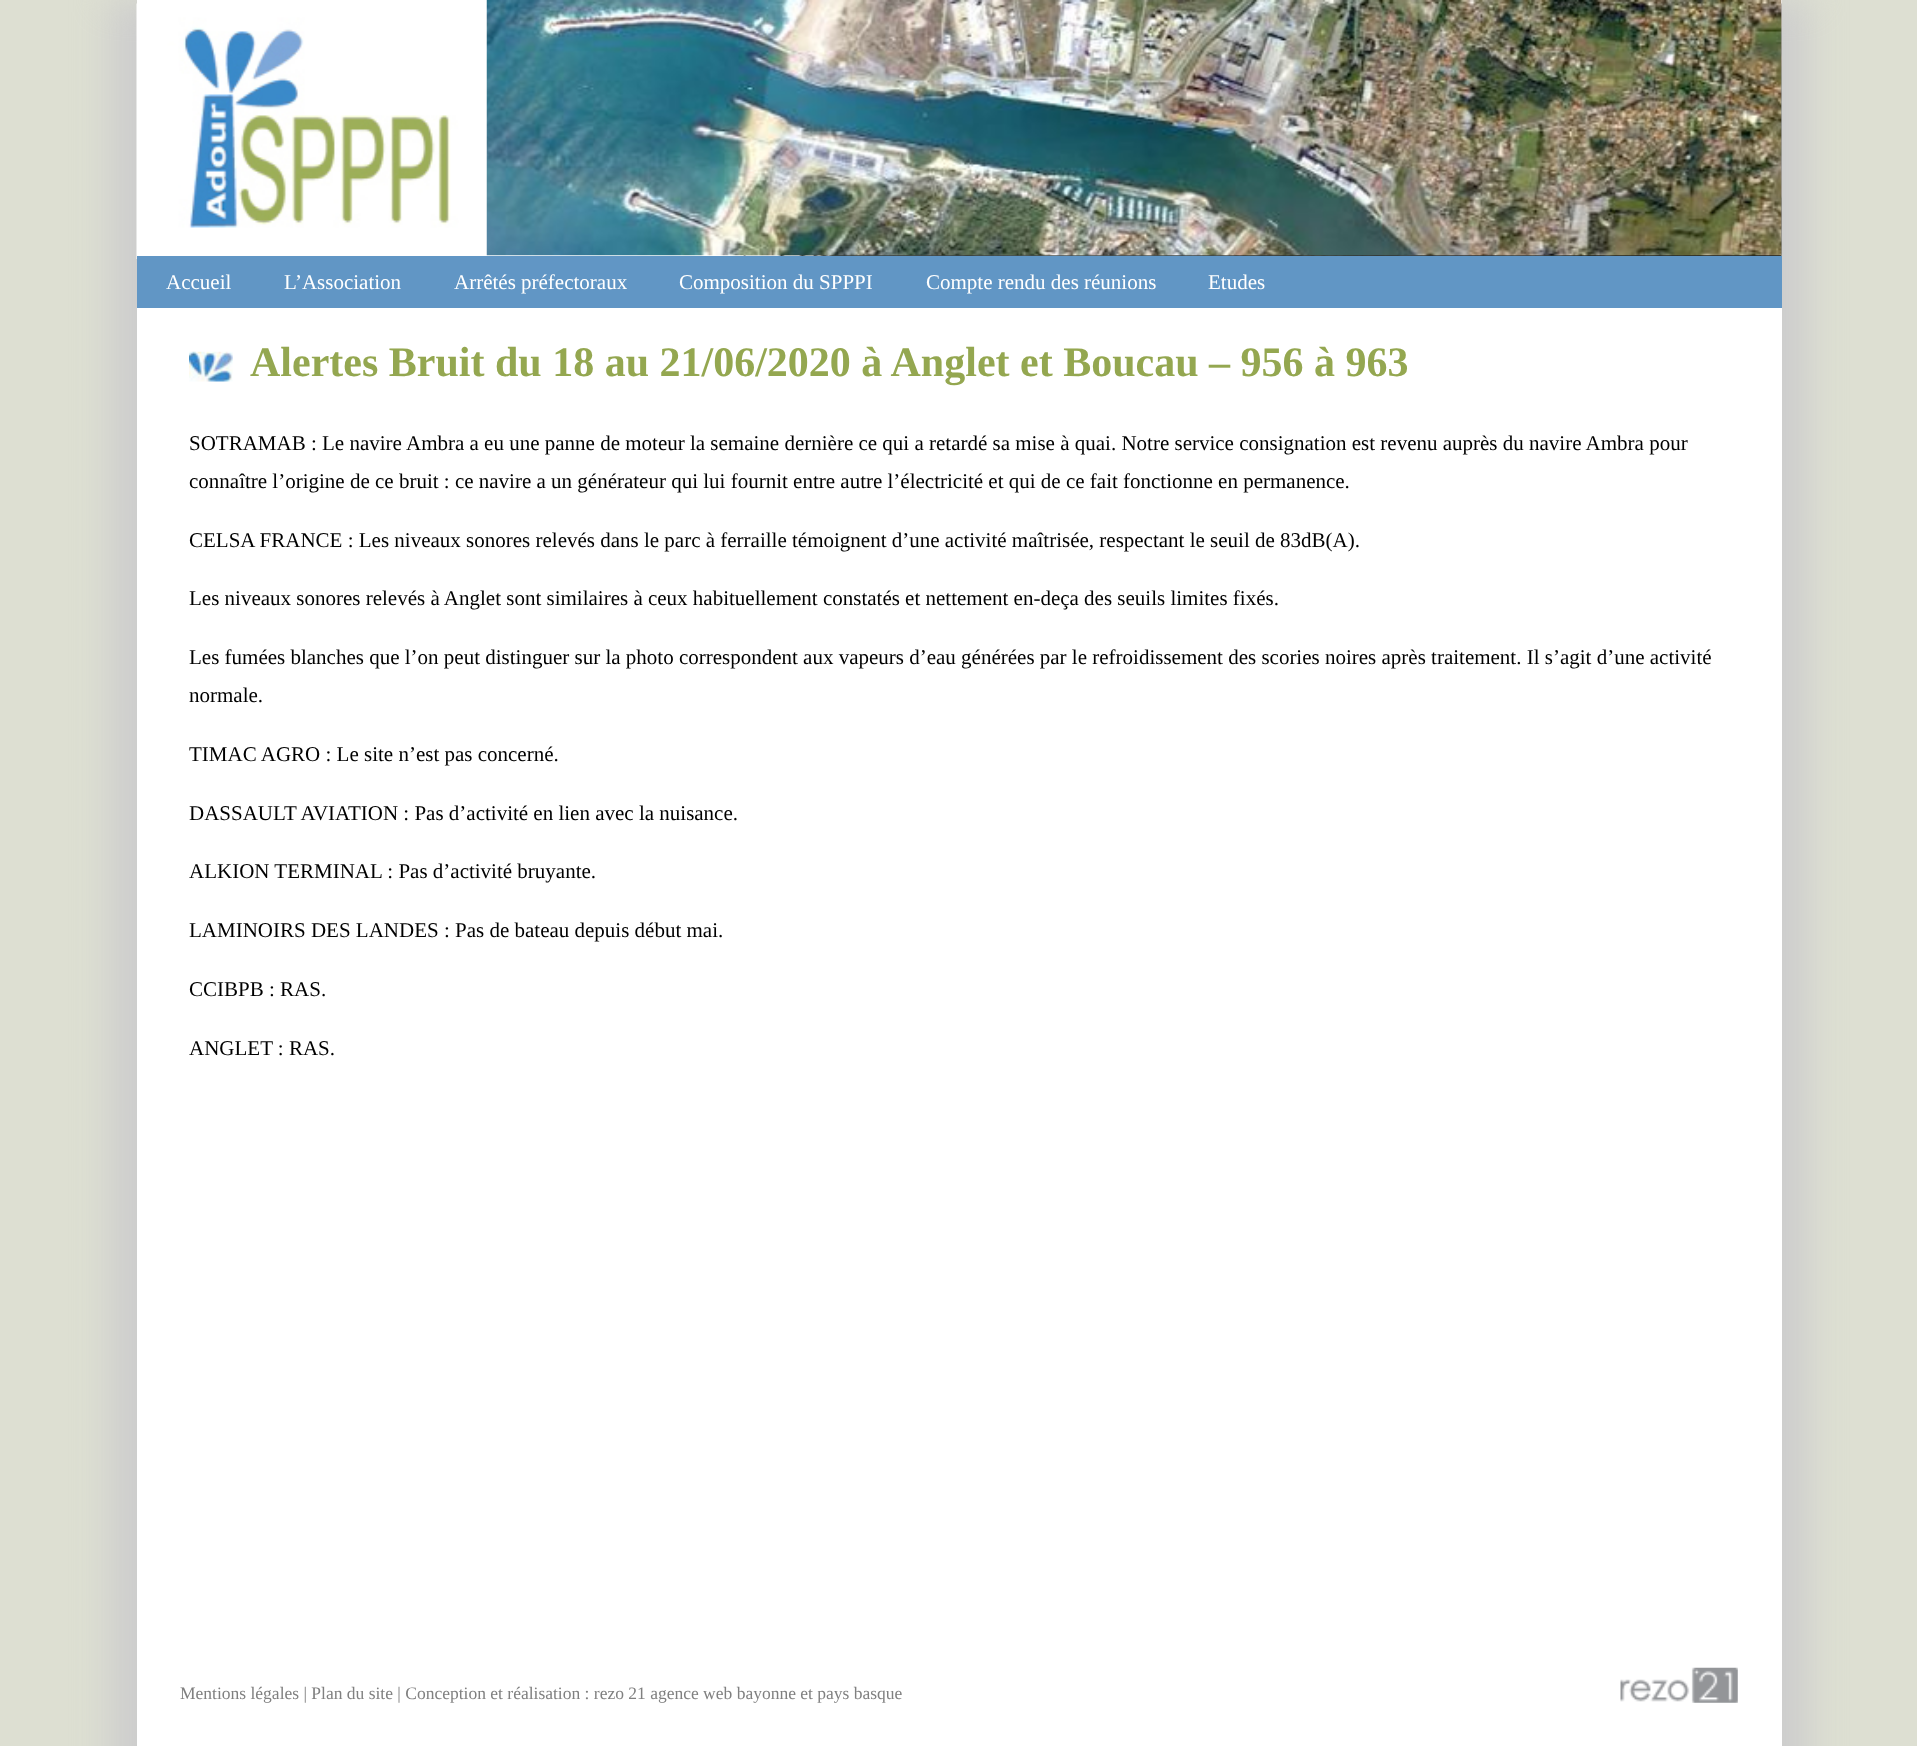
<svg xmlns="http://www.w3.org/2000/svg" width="1917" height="1746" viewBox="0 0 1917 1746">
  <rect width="100%" height="100%" fill="#dddfd2"/>
  <path d="M110 0h1698v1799H110z" fill="#cdcdcd" filter="blur(17.5px)"/>
  <path d="M137 0h1645v1746H137z" fill="#fff"/>
  <image x="136" y="3" width="1646" height="256" href="img/1.png"/>
  <image x="486" y="0" width="1296" height="256" href="img/2.png"/>
  <path d="M137 256h1645v52H137z" fill="#6196c5"/>
  <image x="189" y="351" width="44" height="31" href="img/3.png"/>
  <image x="1620" y="1667" width="118" height="36" href="img/4.png"/>
  <g font-family="Liberation Serif" font-size="21" fill="#fff">
    <text x="166" y="289">Accueil</text>
    <text x="284" y="289">L’Association</text>
    <text x="454" y="289">Arrêtés préfectoraux</text>
    <text x="679" y="289">Composition du SPPPI</text>
    <text x="926" y="289">Compte rendu des réunions</text>
    <text x="1208" y="289">Etudes</text>
  </g>
  <text x="250" y="376" font-family="Liberation Serif" font-size="42" font-weight="bold" fill="#94a750">Alertes Bruit du 18 au 21/06/2020 à Anglet et Boucau – 956 à 963</text>
  <g font-family="Liberation Serif" font-size="21" fill="#000">
    <text x="189" y="450">SOTRAMAB : Le navire Ambra a eu une panne de moteur la semaine dernière ce qui a retardé sa mise à quai. Notre service consignation est revenu auprès du navire Ambra pour</text>
    <text x="189" y="488">connaître l’origine de ce bruit : ce navire a un générateur qui lui fournit entre autre l’électricité et qui de ce fait fonctionne en permanence.</text>
    <text x="189" y="547">CELSA FRANCE : Les niveaux sonores relevés dans le parc à ferraille témoignent d’une activité maîtrisée, respectant le seuil de 83dB(A).</text>
    <text x="189" y="605">Les niveaux sonores relevés à Anglet sont similaires à ceux habituellement constatés et nettement en-deça des seuils limites fixés.</text>
    <text x="189" y="664">Les fumées blanches que l’on peut distinguer sur la photo correspondent aux vapeurs d’eau générées par le refroidissement des scories noires après traitement. Il s’agit d’une activité</text>
    <text x="189" y="702">normale.</text>
    <text x="189" y="761">TIMAC AGRO : Le site n’est pas concerné.</text>
    <text x="189" y="820">DASSAULT AVIATION : Pas d’activité en lien avec la nuisance.</text>
    <text x="189" y="878">ALKION TERMINAL : Pas d’activité bruyante.</text>
    <text x="189" y="937">LAMINOIRS DES LANDES : Pas de bateau depuis début mai.</text>
    <text x="189" y="996">CCIBPB : RAS.</text>
    <text x="189" y="1055">ANGLET : RAS.</text>
  </g>
  <text x="180" y="1699" font-family="Liberation Serif" font-size="17.5" fill="#808080">Mentions légales | Plan du site | Conception et réalisation : rezo 21 agence web bayonne et pays basque</text>
</svg>
